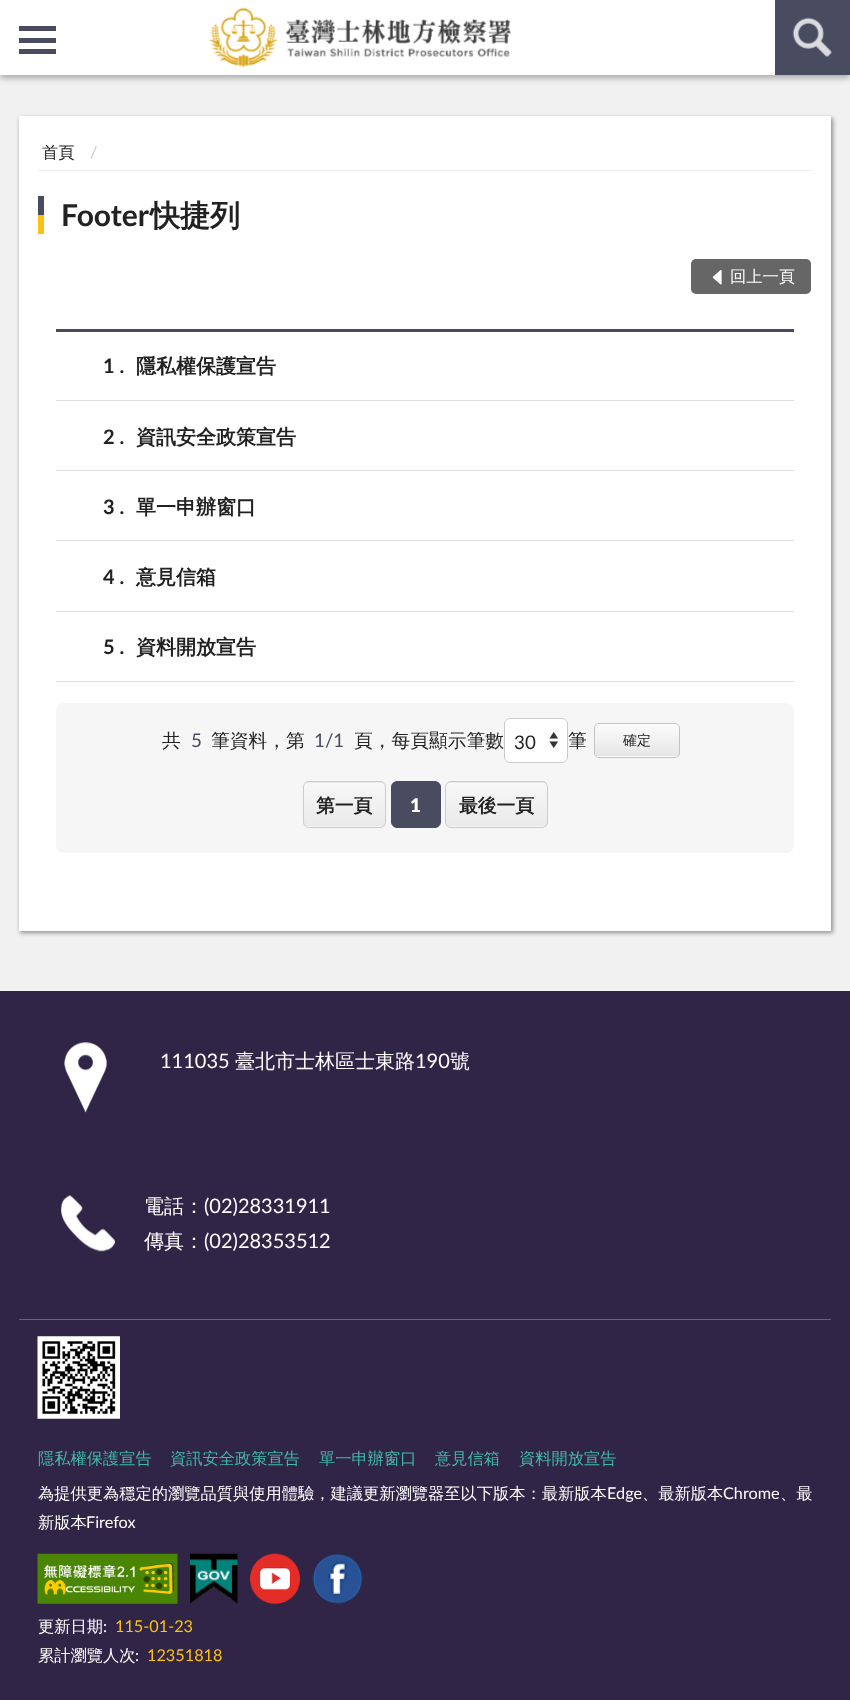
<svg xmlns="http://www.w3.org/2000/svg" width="850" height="1700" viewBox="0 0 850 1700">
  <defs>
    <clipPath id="clip1"><rect x="594" y="723" width="86" height="35" rx="5"/></clipPath>
    <linearGradient id="g1" gradientUnits="userSpaceOnUse" x1="637" y1="724" x2="637" y2="756"><stop offset="0" stop-color="#fcfcfc"/><stop offset="1" stop-color="#e6e6e6"/></linearGradient>
    <linearGradient id="g2" gradientUnits="userSpaceOnUse" x1="637" y1="756" x2="637" y2="789"><stop offset="0" stop-color="#fcfcfc"/><stop offset="1" stop-color="#e6e6e6"/></linearGradient>
    <clipPath id="clip2"><rect x="303" y="781" width="83" height="47" rx="6"/></clipPath>
    <linearGradient id="g3" gradientUnits="userSpaceOnUse" x1="344" y1="739" x2="344" y2="783"><stop offset="0" stop-color="#f7f7f7"/><stop offset="1" stop-color="#eaeaea"/></linearGradient>
    <linearGradient id="g4" gradientUnits="userSpaceOnUse" x1="344" y1="783" x2="344" y2="826"><stop offset="0" stop-color="#f7f7f7"/><stop offset="1" stop-color="#eaeaea"/></linearGradient>
    <clipPath id="clip3"><rect x="445" y="781" width="103" height="47" rx="6"/></clipPath>
    <linearGradient id="g5" gradientUnits="userSpaceOnUse" x1="496" y1="739" x2="496" y2="783"><stop offset="0" stop-color="#f7f7f7"/><stop offset="1" stop-color="#eaeaea"/></linearGradient>
    <linearGradient id="g6" gradientUnits="userSpaceOnUse" x1="496" y1="783" x2="496" y2="826"><stop offset="0" stop-color="#f7f7f7"/><stop offset="1" stop-color="#eaeaea"/></linearGradient>
  </defs>
  <rect width="100%" height="100%" fill="#302546"/>
  <path d="M0 75h850v916H0z" fill="#f1f1f1"/>
  <path d="M0 3h850v75H0z" fill="#0000004d" filter="blur(3px)"/>
  <path d="M0 0h775v75H0z" fill="#fff"/>
  <path d="M19 26h37v5H19z" fill="#494c61"/>
  <path d="M19 38h37v5H19z" fill="#494c61"/>
  <path d="M19 49h37v5H19z" fill="#494c61"/>
  <image x="209" y="7" width="302" height="61" href="img/1.png"/>
  <path d="M775 0h75v75H775z" fill="#494c61"/>
  <image x="792" y="17" width="40" height="40" href="img/2.png"/>
  <path d="M20 118h813v815H20z" fill="#00000066" filter="blur(2px)"/>
  <path d="M19 116h812v815H19z" fill="#fff"/>
  <path d="M38 170h775v1H38z" fill="#eee"/>
  <path d="M38 196h6v19H38z" fill="#494c61"/>
  <path d="M38 215h6v19H38z" fill="#fcc211"/>
  <rect x="691" y="259" width="120" height="35" rx="5" fill="#666"/>
  <image x="712" y="270" width="10" height="15" href="img/3.png"/>
  <path d="M56 329h738v3H56z" fill="#494c61"/>
  <path d="M56 400h738v1H56z" fill="#ddd"/>
  <path d="M56 470h738v1H56z" fill="#ddd"/>
  <path d="M56 540h738v1H56z" fill="#ddd"/>
  <path d="M56 611h738v1H56z" fill="#ddd"/>
  <path d="M56 681h738v1H56z" fill="#ddd"/>
  <rect x="56" y="703" width="738" height="150" rx="8" fill="#f6f6f6"/>
  <rect x="504" y="718" width="64" height="45" rx="6" fill="#fff"/>
  <image x="549" y="732" width="9" height="16" href="img/4.png"/>
  <rect x="504.5" y="718.5" width="63" height="44" rx="5.5" fill="none" stroke="#ccc"/>
  <g clip-path="url(#clip1)">
    <path d="M594 724h86v32H594z" fill="url(#g1)"/>
    <path d="M594 756h86v2H594z" fill="url(#g2)"/>
  </g>
  <rect x="594.5" y="723.5" width="85" height="34" rx="4.5" fill="none" stroke="#c4c4c4"/>
  <g clip-path="url(#clip2)">
    <path d="M303 781h83v2H303z" fill="url(#g3)"/>
    <path d="M303 783h83v43H303z" fill="url(#g4)"/>
  </g>
  <rect x="303.5" y="781.5" width="82" height="46" rx="5.5" fill="none" stroke="#ccc"/>
  <rect x="391.5" y="781.5" width="49" height="46" rx="5.5" fill="#494c61" stroke="#494c61"/>
  <g clip-path="url(#clip3)">
    <path d="M445 781h103v2H445z" fill="url(#g5)"/>
    <path d="M445 783h103v43H445z" fill="url(#g6)"/>
  </g>
  <rect x="445.5" y="781.5" width="102" height="46" rx="5.5" fill="none" stroke="#ccc"/>
  <image x="64" y="1042" width="43" height="71" href="img/5.png"/>
  <image x="61" y="1195" width="54" height="57" href="img/6.png"/>
  <path d="M19 1319h812v1H19z" fill="#666"/>
  <image x="37" y="1336" width="83" height="83" href="img/7.png"/>
  <image x="37" y="1553" width="141" height="51" href="img/8.png"/>
  <image x="190" y="1553" width="48" height="51" href="img/9.png"/>
  <image x="250" y="1553" width="50" height="51" href="img/10.png"/>
  <image x="312" y="1553" width="51" height="51" href="img/11.png"/>
  <text x="42" y="158" font-family="WenQuanYi Zen Hei" font-size="16.25" font-weight="500" fill="#222">首頁</text>
  <text x="90" y="158" font-family="Lato" font-size="16.25" fill="#ccc">/</text>
  <text x="61" y="226" font-family="Lato" font-size="30" font-weight="bold" fill="#222">Footer</text>
  <text x="150" y="226" font-family="WenQuanYi Zen Hei" font-size="30" font-weight="bold" fill="#222">快捷列</text>
  <text x="730" y="282" font-family="WenQuanYi Zen Hei" font-size="16.25" font-weight="500" fill="#fff">回上一頁</text>
  <text x="103" y="373" font-family="Lato" font-size="20" font-weight="bold" fill="#222">1 .</text>
  <text x="136" y="373" font-family="WenQuanYi Zen Hei" font-size="20" font-weight="bold" fill="#222">隱私權保護宣告</text>
  <text x="103" y="444" font-family="Lato" font-size="20" font-weight="bold" fill="#222">2 .</text>
  <text x="136" y="444" font-family="WenQuanYi Zen Hei" font-size="20" font-weight="bold" fill="#222">資訊安全政策宣告</text>
  <text x="103" y="514" font-family="Lato" font-size="20" font-weight="bold" fill="#222">3 .</text>
  <text x="136" y="514" font-family="WenQuanYi Zen Hei" font-size="20" font-weight="bold" fill="#222">單一申辦窗口</text>
  <text x="103" y="584" font-family="Lato" font-size="20" font-weight="bold" fill="#222">4 .</text>
  <text x="136" y="584" font-family="WenQuanYi Zen Hei" font-size="20" font-weight="bold" fill="#222">意見信箱</text>
  <text x="103" y="654" font-family="Lato" font-size="20" font-weight="bold" fill="#222">5 .</text>
  <text x="136" y="654" font-family="WenQuanYi Zen Hei" font-size="20" font-weight="bold" fill="#222">資料開放宣告</text>
  <text x="162" y="747" font-family="WenQuanYi Zen Hei" font-size="18.75" font-weight="500" fill="#222">共</text>
  <text x="191" y="747" font-family="Lato" font-size="18.75" fill="#494c61">5</text>
  <text x="211" y="747" font-family="WenQuanYi Zen Hei" font-size="18.75" font-weight="500" fill="#222">筆資料，第</text>
  <text x="314" y="747" font-family="Lato" font-size="18.75" fill="#494c61">1/1</text>
  <text x="354" y="747" font-family="WenQuanYi Zen Hei" font-size="18.75" font-weight="500" fill="#222">頁，每頁顯示筆數</text>
  <text x="514" y="749" font-family="Lato" font-size="18.75" fill="#222">30</text>
  <text x="568" y="747" font-family="WenQuanYi Zen Hei" font-size="18.75" font-weight="500" fill="#222">筆</text>
  <text x="623" y="745" font-family="WenQuanYi Zen Hei" font-size="14" font-weight="500" fill="#222">確定</text>
  <text x="316" y="812" font-family="WenQuanYi Zen Hei" font-size="18.75" font-weight="bold" fill="#222">第一頁</text>
  <text x="410" y="812" font-family="Lato" font-size="18.75" font-weight="800" fill="#fff">1</text>
  <text x="459" y="812" font-family="WenQuanYi Zen Hei" font-size="18.75" font-weight="bold" fill="#222">最後一頁</text>
  <text x="160" y="1068" font-family="Lato" font-size="20" fill="#fff">111035</text>
  <text x="235" y="1068" font-family="WenQuanYi Zen Hei" font-size="20" font-weight="500" fill="#fff">臺北市士林區士東路</text>
  <text x="415" y="1068" font-family="Lato" font-size="20" fill="#fff">190</text>
  <g font-family="WenQuanYi Zen Hei" font-size="20" font-weight="500" fill="#fff">
    <text x="450" y="1068">號</text>
    <text x="144" y="1213">電話：</text>
  </g>
  <text x="204" y="1213" font-family="Lato" font-size="20" fill="#fff">(02)28331911</text>
  <text x="144" y="1248" font-family="WenQuanYi Zen Hei" font-size="20" font-weight="500" fill="#fff">傳真：</text>
  <text x="204" y="1248" font-family="Lato" font-size="20" fill="#fff">(02)28353512</text>
  <g font-family="WenQuanYi Zen Hei" font-size="16.25" font-weight="500" fill="#41b9a6">
    <text x="38" y="1464">隱私權保護宣告</text>
    <text x="170" y="1464">資訊安全政策宣告</text>
    <text x="319" y="1464">單一申辦窗口</text>
    <text x="435" y="1464">意見信箱</text>
    <text x="519" y="1464">資料開放宣告</text>
  </g>
  <text x="38" y="1499" font-family="WenQuanYi Zen Hei" font-size="16.25" font-weight="500" fill="#fff">為提供更為穩定的瀏覽品質與使用體驗，建議更新瀏覽器至以下版本：最新版本</text>
  <text x="607" y="1499" font-family="Lato" font-size="16.25" fill="#fff">Edge</text>
  <text x="642" y="1499" font-family="WenQuanYi Zen Hei" font-size="16.25" font-weight="500" fill="#fff">、最新版本</text>
  <text x="723" y="1499" font-family="Lato" font-size="16.25" fill="#fff">Chrome</text>
  <g font-family="WenQuanYi Zen Hei" font-size="16.25" font-weight="500" fill="#fff">
    <text x="780" y="1499">、最</text>
    <text x="38" y="1528">新版本</text>
  </g>
  <text x="86" y="1528" font-family="Lato" font-size="16.25" fill="#fff">Firefox</text>
  <text x="38" y="1632" font-family="WenQuanYi Zen Hei" font-size="16.25" font-weight="500" fill="#fff">更新日期</text>
  <text x="103" y="1632" font-family="Lato" font-size="16.25" fill="#fff">:</text>
  <text x="115" y="1632" font-family="Lato" font-size="16.25" fill="#fcc211">115-01-23</text>
  <text x="38" y="1661" font-family="WenQuanYi Zen Hei" font-size="16.25" font-weight="500" fill="#fff">累計瀏覽人次</text>
  <text x="135" y="1661" font-family="Lato" font-size="16.25" fill="#fff">:</text>
  <text x="147" y="1661" font-family="Lato" font-size="16.25" fill="#fcc211">12351818</text>
</svg>
